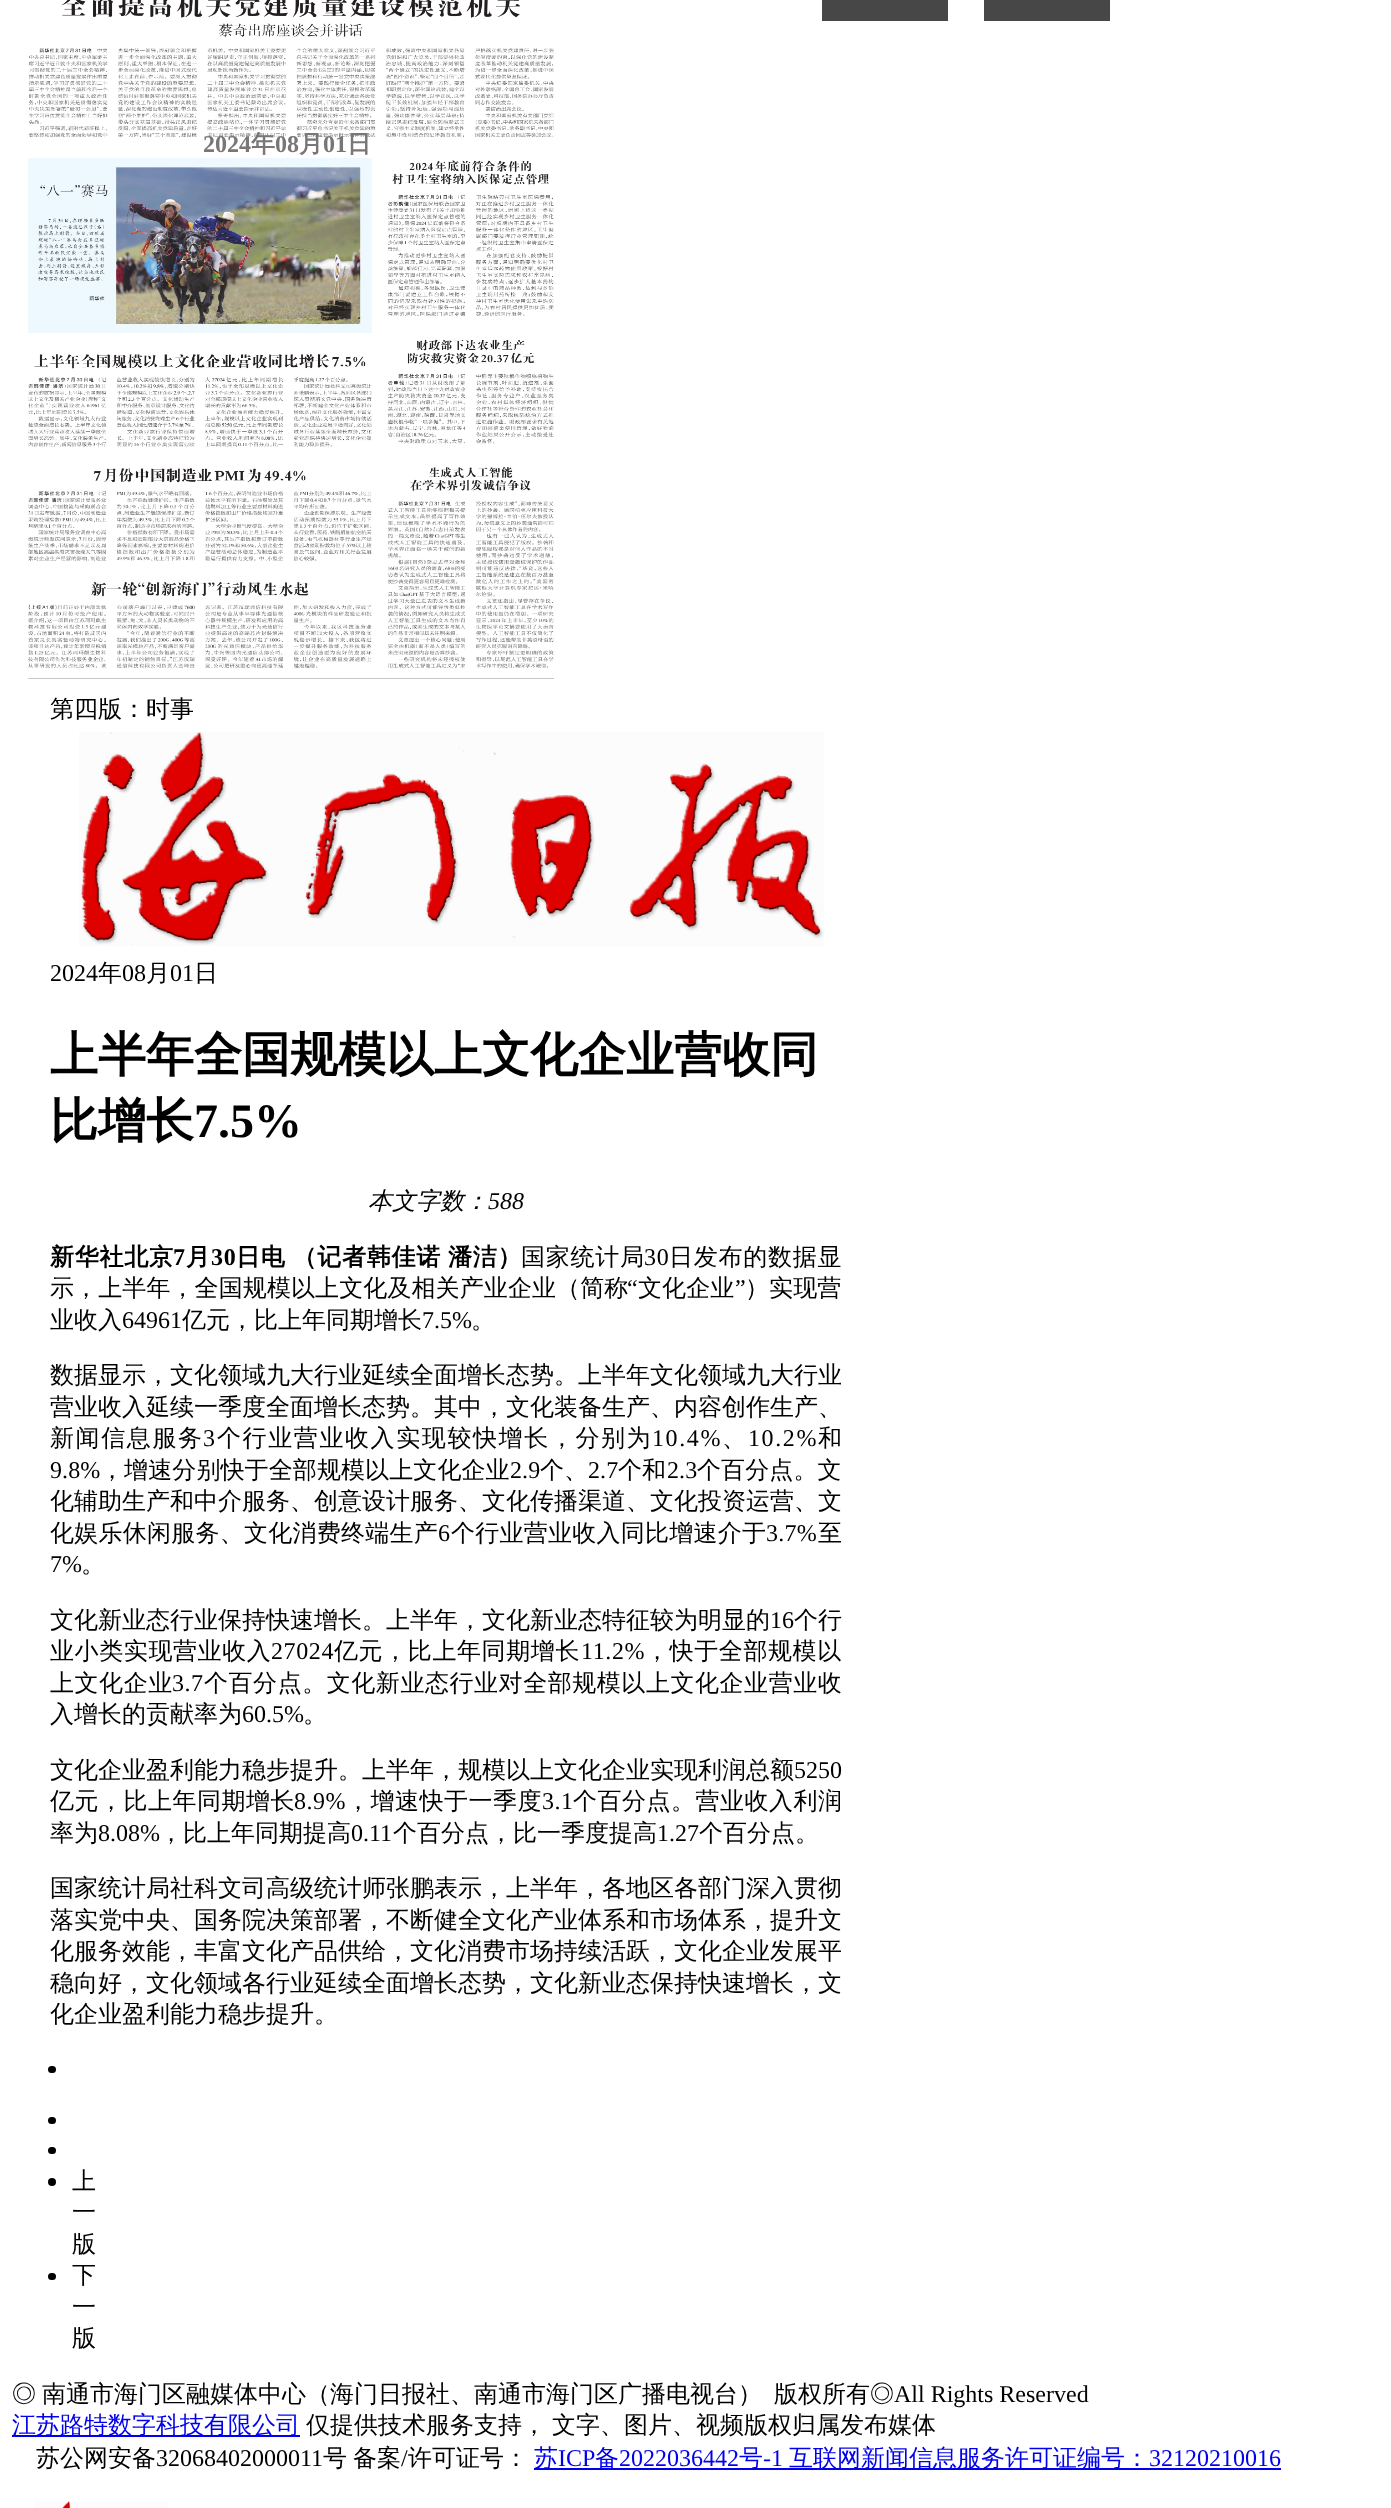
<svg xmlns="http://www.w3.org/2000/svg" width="1391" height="2508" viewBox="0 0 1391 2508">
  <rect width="100%" height="100%" fill="#fff"/>
  <path d="M822 0h126v21H822z" fill="#474747"/>
  <path d="M984 0h126v21H984z" fill="#474747"/>
  <image x="28" y="0" width="526" height="679" href="img/1.png"/>
  <image x="79" y="732" width="745" height="214" href="img/2.png"/>
  <rect x="48" y="2066" width="8" height="7" rx="3.5" fill="#000"/>
  <rect x="48" y="2117" width="8" height="7" rx="3.5" fill="#000"/>
  <rect x="48" y="2147" width="8" height="7" rx="3.5" fill="#000"/>
  <circle cx="52" cy="2182" r="4" fill="#000"/>
  <rect x="48" y="2273" width="8" height="7" rx="3.5" fill="#000"/>
  <path d="M12 2435h288v2H12z" fill="#00e"/>
  <path d="M534 2468h747v2H534z" fill="#00e"/>
  <image x="35" y="2501" width="133" height="7" href="img/3.png"/>
  <text x="203" y="152" font-family="Liberation Serif" font-size="24" font-weight="bold" fill="#787676">2024</text>
  <text x="251" y="152" font-family="WenQuanYi Zen Hei" font-size="24" font-weight="bold" fill="#787676">年</text>
  <text x="275" y="152" font-family="Liberation Serif" font-size="24" font-weight="bold" fill="#787676">08</text>
  <text x="299" y="152" font-family="WenQuanYi Zen Hei" font-size="24" font-weight="bold" fill="#787676">月</text>
  <text x="323" y="152" font-family="Liberation Serif" font-size="24" font-weight="bold" fill="#787676">01</text>
  <text x="347" y="152" font-family="WenQuanYi Zen Hei" font-size="24" font-weight="bold" fill="#787676">日</text>
  <text x="50" y="717" font-family="WenQuanYi Zen Hei" font-size="24" font-weight="500" fill="#000">第四版：时事</text>
  <text x="50" y="981" font-family="Liberation Serif" font-size="24" fill="#000">2024</text>
  <text x="98" y="981" font-family="WenQuanYi Zen Hei" font-size="24" font-weight="500" fill="#000">年</text>
  <text x="122" y="981" font-family="Liberation Serif" font-size="24" fill="#000">08</text>
  <text x="146" y="981" font-family="WenQuanYi Zen Hei" font-size="24" font-weight="500" fill="#000">月</text>
  <text x="170" y="981" font-family="Liberation Serif" font-size="24" fill="#000">01</text>
  <text x="194" y="981" font-family="WenQuanYi Zen Hei" font-size="24" font-weight="500" fill="#000">日</text>
  <g font-family="WenQuanYi Zen Hei" font-size="48" font-weight="bold" fill="#000">
    <text x="50" y="1071">上半年全国规模以上文化企业营收同</text>
    <text x="50" y="1137">比增长</text>
  </g>
  <text x="194" y="1137" font-family="Liberation Serif" font-size="48" font-weight="bold" fill="#000">7.5%</text>
  <text x="368" y="1209" font-family="WenQuanYi Zen Hei" font-size="24" font-weight="500" font-style="italic" fill="#000">本文字数：</text>
  <text x="488" y="1209" font-family="Liberation Serif" font-size="24" font-style="italic" fill="#000">588</text>
  <text x="50" y="1265" font-family="WenQuanYi Zen Hei" font-size="24" font-weight="bold" letter-spacing="0.75" fill="#000">新华社北京</text>
  <text x="173" y="1265" font-family="Liberation Serif" font-size="24" font-weight="bold" letter-spacing="0.75" fill="#000">7</text>
  <text x="186" y="1265" font-family="WenQuanYi Zen Hei" font-size="24" font-weight="bold" letter-spacing="0.75" fill="#000">月</text>
  <text x="211" y="1265" font-family="Liberation Serif" font-size="24" font-weight="bold" letter-spacing="0.75" fill="#000">30</text>
  <text x="236" y="1265" word-spacing="-1" font-family="WenQuanYi Zen Hei" font-size="24" font-weight="bold" letter-spacing="0.75" fill="#000">日电 （记者韩佳诺 潘洁）</text>
  <text x="521" y="1265" font-family="WenQuanYi Zen Hei" font-size="24" font-weight="500" letter-spacing="0.75" fill="#000">国家统计局</text>
  <text x="644" y="1265" font-family="Liberation Serif" font-size="24" letter-spacing="0.75" fill="#000">30</text>
  <text x="669" y="1265" font-family="WenQuanYi Zen Hei" font-size="24" font-weight="500" letter-spacing="0.75" fill="#000">日发布的数据显</text>
  <text x="50" y="1296" font-family="WenQuanYi Zen Hei" font-size="24" font-weight="500" letter-spacing="0.1" fill="#000">示，上半年，全国规模以上文化及相关产业企业（简称</text>
  <text x="627" y="1296" font-family="Liberation Serif" font-size="24" letter-spacing="0.1" fill="#000">“</text>
  <text x="638" y="1296" font-family="WenQuanYi Zen Hei" font-size="24" font-weight="500" letter-spacing="0.1" fill="#000">文化企业</text>
  <text x="735" y="1296" font-family="Liberation Serif" font-size="24" letter-spacing="0.1" fill="#000">”</text>
  <text x="745" y="1296" font-family="WenQuanYi Zen Hei" font-size="24" font-weight="500" letter-spacing="0.1" fill="#000">）实现营</text>
  <text x="50" y="1328" font-family="WenQuanYi Zen Hei" font-size="24" font-weight="500" fill="#000">业收入</text>
  <text x="122" y="1328" font-family="Liberation Serif" font-size="24" fill="#000">64961</text>
  <text x="182" y="1328" font-family="WenQuanYi Zen Hei" font-size="24" font-weight="500" fill="#000">亿元，比上年同期增长</text>
  <text x="422" y="1328" font-family="Liberation Serif" font-size="24" fill="#000">7.5%</text>
  <g font-family="WenQuanYi Zen Hei" font-size="24" font-weight="500" fill="#000">
    <text x="471" y="1328">。</text>
    <text x="50" y="1383">数据显示，文化领域九大行业延续全面增长态势。上半年文化领域九大行业</text>
    <text x="50" y="1415">营业收入延续一季度全面增长态势。其中，文化装备生产、内容创作生产、</text>
  </g>
  <text x="50" y="1446" font-family="WenQuanYi Zen Hei" font-size="24" font-weight="500" letter-spacing="1.6" fill="#000">新闻信息服务</text>
  <text x="203" y="1446" font-family="Liberation Serif" font-size="24" letter-spacing="1.6" fill="#000">3</text>
  <text x="217" y="1446" font-family="WenQuanYi Zen Hei" font-size="24" font-weight="500" letter-spacing="1.6" fill="#000">个行业营业收入实现较快增长，分别为</text>
  <text x="652" y="1446" font-family="Liberation Serif" font-size="24" letter-spacing="1.6" fill="#000">10.4%</text>
  <text x="722" y="1446" font-family="WenQuanYi Zen Hei" font-size="24" font-weight="500" letter-spacing="1.6" fill="#000">、</text>
  <text x="748" y="1446" font-family="Liberation Serif" font-size="24" letter-spacing="1.6" fill="#000">10.2%</text>
  <text x="818" y="1446" font-family="WenQuanYi Zen Hei" font-size="24" font-weight="500" letter-spacing="1.6" fill="#000">和</text>
  <text x="50" y="1478" font-family="Liberation Serif" font-size="24" letter-spacing="0.1" fill="#000">9.8%</text>
  <text x="100" y="1478" font-family="WenQuanYi Zen Hei" font-size="24" font-weight="500" letter-spacing="0.1" fill="#000">，增速分别快于全部规模以上文化企业</text>
  <text x="510" y="1478" font-family="Liberation Serif" font-size="24" letter-spacing="0.1" fill="#000">2.9</text>
  <text x="540" y="1478" font-family="WenQuanYi Zen Hei" font-size="24" font-weight="500" letter-spacing="0.1" fill="#000">个、</text>
  <text x="588" y="1478" font-family="Liberation Serif" font-size="24" letter-spacing="0.1" fill="#000">2.7</text>
  <text x="618" y="1478" font-family="WenQuanYi Zen Hei" font-size="24" font-weight="500" letter-spacing="0.1" fill="#000">个和</text>
  <text x="667" y="1478" font-family="Liberation Serif" font-size="24" letter-spacing="0.1" fill="#000">2.3</text>
  <text x="697" y="1478" font-family="WenQuanYi Zen Hei" font-size="24" font-weight="500" letter-spacing="0.1" fill="#000">个百分点。文</text>
  <text x="50" y="1509" font-family="WenQuanYi Zen Hei" font-size="24" font-weight="500" fill="#000">化辅助生产和中介服务、创意设计服务、文化传播渠道、文化投资运营、文</text>
  <text x="50" y="1541" font-family="WenQuanYi Zen Hei" font-size="24" font-weight="500" letter-spacing="0.25" fill="#000">化娱乐休闲服务、文化消费终端生产</text>
  <text x="438" y="1541" font-family="Liberation Serif" font-size="24" letter-spacing="0.25" fill="#000">6</text>
  <text x="451" y="1541" font-family="WenQuanYi Zen Hei" font-size="24" font-weight="500" letter-spacing="0.25" fill="#000">个行业营业收入同比增速介于</text>
  <text x="766" y="1541" font-family="Liberation Serif" font-size="24" letter-spacing="0.25" fill="#000">3.7%</text>
  <text x="818" y="1541" font-family="WenQuanYi Zen Hei" font-size="24" font-weight="500" letter-spacing="0.25" fill="#000">至</text>
  <text x="50" y="1572" font-family="Liberation Serif" font-size="24" fill="#000">7%</text>
  <g font-family="WenQuanYi Zen Hei" font-size="24" font-weight="500" fill="#000">
    <text x="81" y="1572">。</text>
    <text x="50" y="1628">文化新业态行业保持快速增长。上半年，文化新业态特征较为明显的</text>
  </g>
  <text x="770" y="1628" font-family="Liberation Serif" font-size="24" fill="#000">16</text>
  <text x="794" y="1628" font-family="WenQuanYi Zen Hei" font-size="24" font-weight="500" fill="#000">个行</text>
  <text x="50" y="1659" font-family="WenQuanYi Zen Hei" font-size="24" font-weight="500" letter-spacing="0.6" fill="#000">业小类实现营业收入</text>
  <text x="271" y="1659" font-family="Liberation Serif" font-size="24" letter-spacing="0.6" fill="#000">27024</text>
  <text x="334" y="1659" font-family="WenQuanYi Zen Hei" font-size="24" font-weight="500" letter-spacing="0.6" fill="#000">亿元，比上年同期增长</text>
  <text x="581" y="1659" font-family="Liberation Serif" font-size="24" letter-spacing="0.6" fill="#000">11.2%</text>
  <text x="645" y="1659" font-family="WenQuanYi Zen Hei" font-size="24" font-weight="500" letter-spacing="0.6" fill="#000">，快于全部规模以</text>
  <text x="50" y="1691" font-family="WenQuanYi Zen Hei" font-size="24" font-weight="500" letter-spacing="0.55" fill="#000">上文化企业</text>
  <text x="172" y="1691" font-family="Liberation Serif" font-size="24" letter-spacing="0.55" fill="#000">3.7</text>
  <text x="204" y="1691" font-family="WenQuanYi Zen Hei" font-size="24" font-weight="500" letter-spacing="0.55" fill="#000">个百分点。文化新业态行业对全部规模以上文化企业营业收</text>
  <text x="50" y="1722" font-family="WenQuanYi Zen Hei" font-size="24" font-weight="500" fill="#000">入增长的贡献率为</text>
  <text x="242" y="1722" font-family="Liberation Serif" font-size="24" fill="#000">60.5%</text>
  <g font-family="WenQuanYi Zen Hei" font-size="24" font-weight="500" fill="#000">
    <text x="303" y="1722">。</text>
    <text x="50" y="1778">文化企业盈利能力稳步提升。上半年，规模以上文化企业实现利润总额</text>
  </g>
  <text x="794" y="1778" font-family="Liberation Serif" font-size="24" fill="#000">5250</text>
  <text x="50" y="1809" font-family="WenQuanYi Zen Hei" font-size="24" font-weight="500" letter-spacing="0.5" fill="#000">亿元，比上年同期增长</text>
  <text x="294" y="1809" font-family="Liberation Serif" font-size="24" letter-spacing="0.5" fill="#000">8.9%</text>
  <text x="346" y="1809" font-family="WenQuanYi Zen Hei" font-size="24" font-weight="500" letter-spacing="0.5" fill="#000">，增速快于一季度</text>
  <text x="542" y="1809" font-family="Liberation Serif" font-size="24" letter-spacing="0.5" fill="#000">3.1</text>
  <text x="573" y="1809" font-family="WenQuanYi Zen Hei" font-size="24" font-weight="500" letter-spacing="0.5" fill="#000">个百分点。营业收入利润</text>
  <text x="50" y="1841" font-family="WenQuanYi Zen Hei" font-size="24" font-weight="500" fill="#000">率为</text>
  <text x="98" y="1841" font-family="Liberation Serif" font-size="24" fill="#000">8.08%</text>
  <text x="159" y="1841" font-family="WenQuanYi Zen Hei" font-size="24" font-weight="500" fill="#000">，比上年同期提高</text>
  <text x="351" y="1841" font-family="Liberation Serif" font-size="24" fill="#000">0.11</text>
  <text x="393" y="1841" font-family="WenQuanYi Zen Hei" font-size="24" font-weight="500" fill="#000">个百分点，比一季度提高</text>
  <text x="657" y="1841" font-family="Liberation Serif" font-size="24" fill="#000">1.27</text>
  <g font-family="WenQuanYi Zen Hei" font-size="24" font-weight="500" fill="#000">
    <text x="699" y="1841">个百分点。</text>
    <text x="50" y="1896">国家统计局社科文司高级统计师张鹏表示，上半年，各地区各部门深入贯彻</text>
    <text x="50" y="1928">落实党中央、国务院决策部署，不断健全文化产业体系和市场体系，提升文</text>
    <text x="50" y="1959">化服务效能，丰富文化产品供给，文化消费市场持续活跃，文化企业发展平</text>
    <text x="50" y="1991">稳向好，文化领域各行业延续全面增长态势，文化新业态保持快速增长，文</text>
    <text x="50" y="2022">化企业盈利能力稳步提升。</text>
    <text x="72" y="2189">上</text>
    <text x="72" y="2220">一</text>
    <text x="72" y="2252">版</text>
    <text x="72" y="2283">下</text>
    <text x="72" y="2315">一</text>
    <text x="72" y="2346">版</text>
    <text x="12" y="2402">◎</text>
    <text x="42" y="2402">南通市海门区融媒体中心（海门日报社、南通市海门区广播电视台）</text>
    <text x="774" y="2402">版权所有◎</text>
  </g>
  <text x="894" y="2402" font-family="Liberation Serif" font-size="24" fill="#000">All Rights Reserved</text>
  <text x="12" y="2433" font-family="WenQuanYi Zen Hei" font-size="24" font-weight="500" fill="#00e">江苏路特数字科技有限公司</text>
  <g font-family="WenQuanYi Zen Hei" font-size="24" font-weight="500" fill="#000">
    <text x="306" y="2433">仅提供技术服务支持，</text>
    <text x="552" y="2433">文字、图片、视频版权归属发布媒体</text>
    <text x="36" y="2466">苏公网安备</text>
  </g>
  <text x="156" y="2466" font-family="Liberation Serif" font-size="24" fill="#000">32068402000011</text>
  <g font-family="WenQuanYi Zen Hei" font-size="24" font-weight="500" fill="#000">
    <text x="323" y="2466">号</text>
    <text x="353" y="2466">备案</text>
  </g>
  <text x="401" y="2466" font-family="Liberation Serif" font-size="24" fill="#000">/</text>
  <text x="408" y="2466" font-family="WenQuanYi Zen Hei" font-size="24" font-weight="500" fill="#000">许可证号：</text>
  <text x="534" y="2466" font-family="WenQuanYi Zen Hei" font-size="24" font-weight="500" fill="#00e">苏</text>
  <text x="558" y="2466" font-family="Liberation Serif" font-size="24" fill="#00e">ICP</text>
  <text x="595" y="2466" font-family="WenQuanYi Zen Hei" font-size="24" font-weight="500" fill="#00e">备</text>
  <text x="619" y="2466" font-family="Liberation Serif" font-size="24" fill="#00e">2022036442</text>
  <text x="739" y="2466" font-family="WenQuanYi Zen Hei" font-size="24" font-weight="500" fill="#00e">号</text>
  <text x="763" y="2466" font-family="Liberation Serif" font-size="24" fill="#00e">-1</text>
  <text x="789" y="2466" font-family="WenQuanYi Zen Hei" font-size="24" font-weight="500" fill="#00e">互联网新闻信息服务许可证编号：</text>
  <text x="1149" y="2466" font-family="Liberation Serif" font-size="24" fill="#00e">32120210016</text>
</svg>
